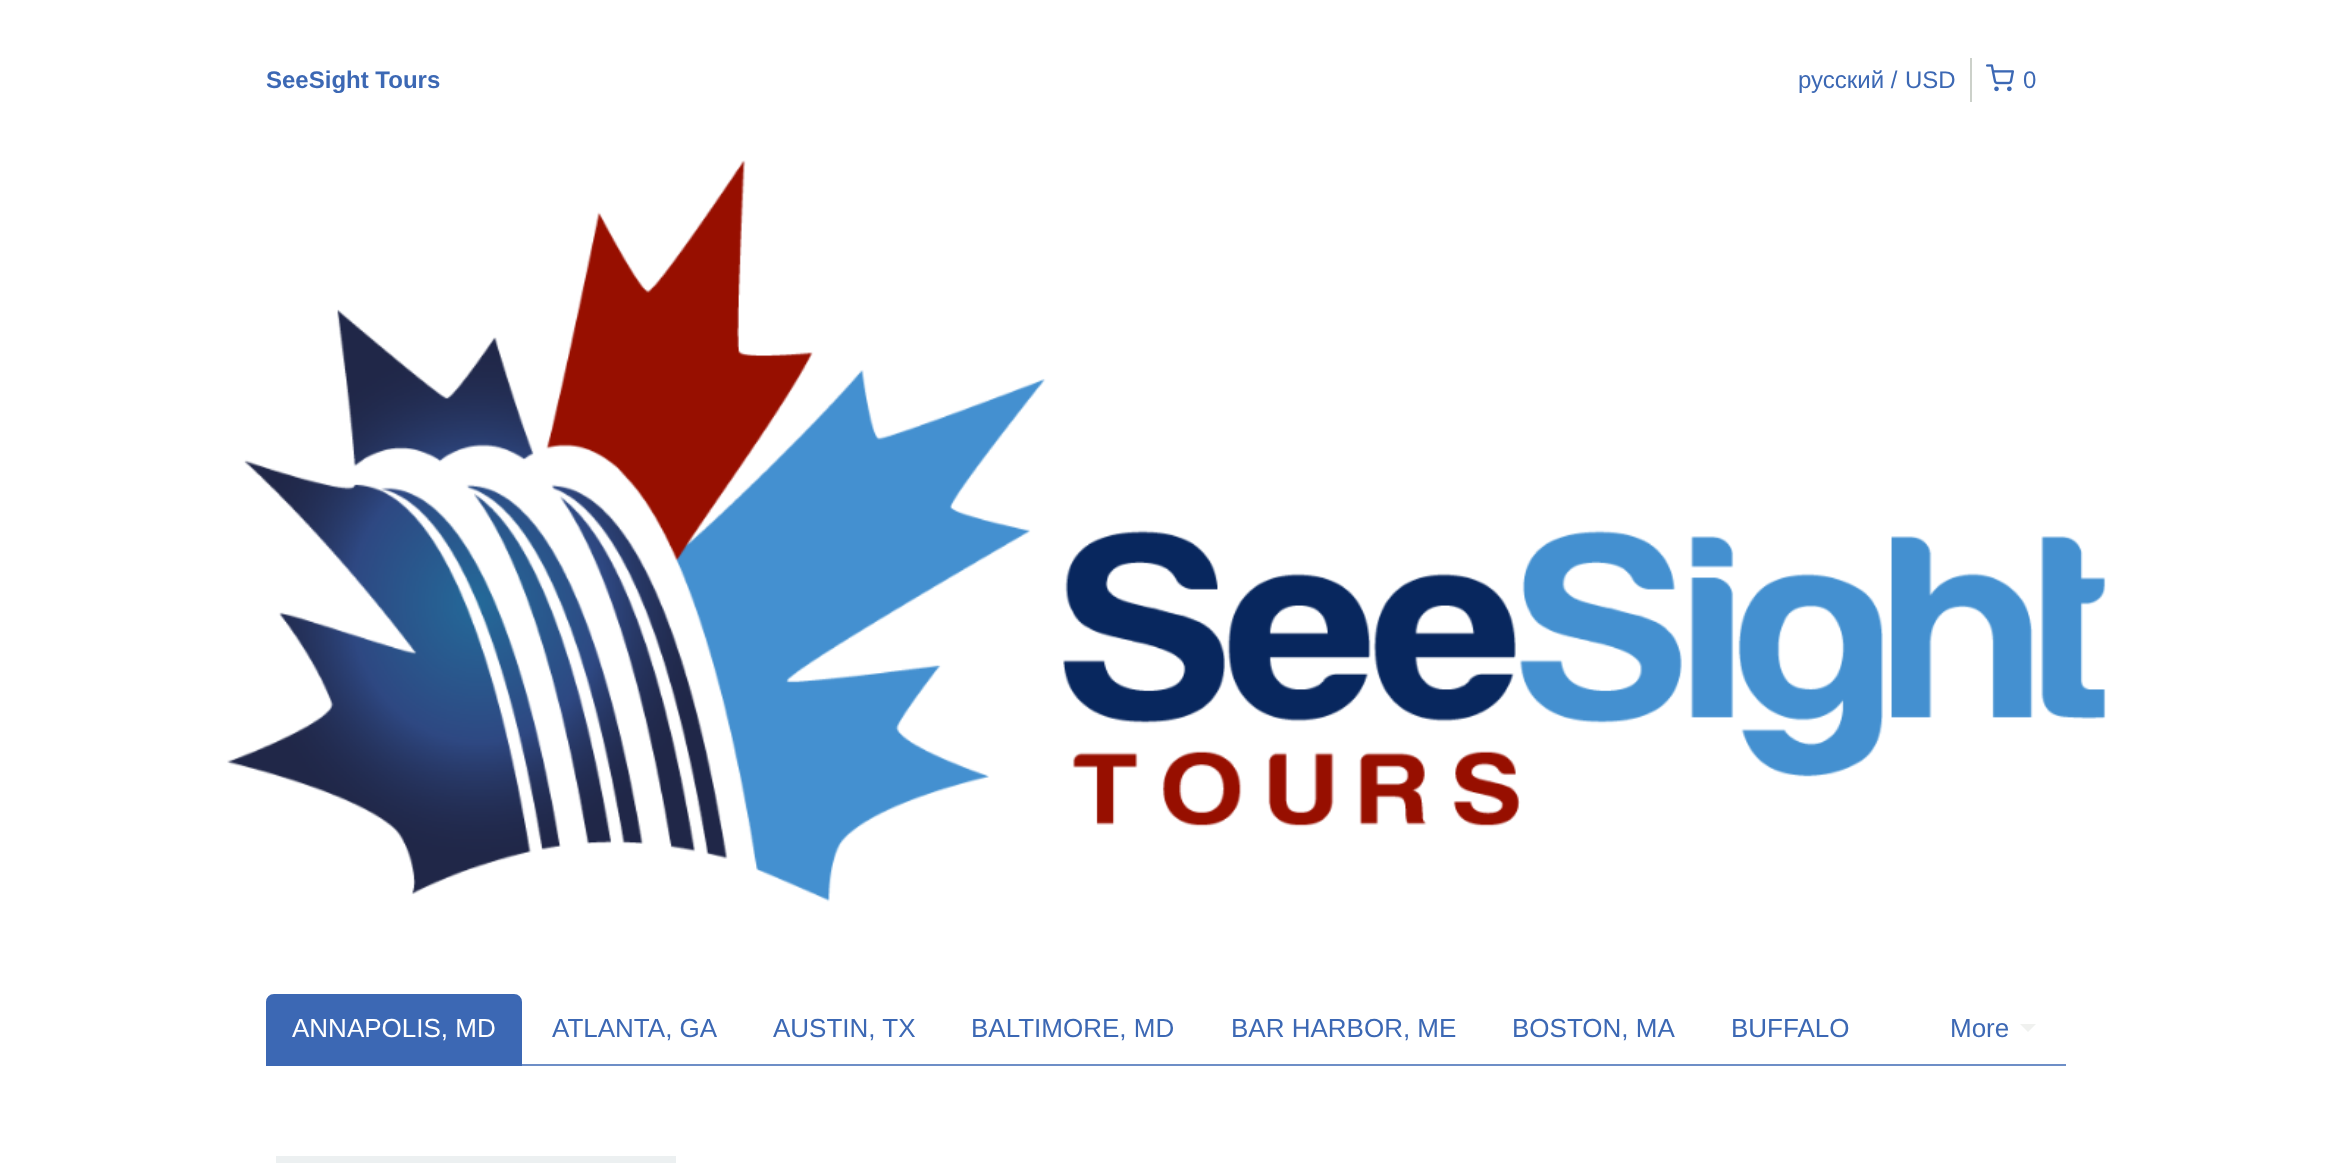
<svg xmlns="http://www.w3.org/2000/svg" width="2332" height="1163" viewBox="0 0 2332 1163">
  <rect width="100%" height="100%" fill="#fff"/>
  <path d="M1970 58h2v44H1970z" fill="#ccd1ca"/>
  <image x="1986" y="64" width="28" height="28" href="img/1.png"/>
  <image x="227" y="160" width="1879" height="742" href="img/2.png"/>
  <path d="M522 1064h1544v2H522z" fill="#6d8ec7"/>
  <path d="M274 995H514C518 995 521 998 521 1002V1065H267V1002C267 998 270 995 274 995Z" fill="#3c68b4" stroke="#3c68b4" stroke-width="2"/>
  <path d="M2020 1024H2036L2028 1032Z" fill="#f0f1ef"/>
  <path d="M276 1156h400v7H276z" fill="#ecf0f1"/>
  <text x="266" y="88" font-family="Liberation Sans" font-size="24" font-weight="bold" fill="#3c68b4">SeeSight Tours</text>
  <g font-family="Liberation Sans" font-size="24" fill="#3c68b4">
    <text x="1798" y="88">русский /</text>
    <text x="1905" y="88">USD</text>
    <text x="2023" y="88">0</text>
  </g>
  <text x="292" y="1037" font-family="Liberation Sans" font-size="26" fill="#fff">ANNAPOLIS, MD</text>
  <g font-family="Liberation Sans" font-size="26" fill="#3c68b4">
    <text x="552" y="1037">ATLANTA, GA</text>
    <text x="773" y="1037">AUSTIN, TX</text>
    <text x="971" y="1037">BALTIMORE, MD</text>
    <text x="1231" y="1037">BAR HARBOR, ME</text>
    <text x="1512" y="1037">BOSTON, MA</text>
    <text x="1731" y="1037">BUFFALO</text>
    <text x="1950" y="1037">More</text>
  </g>
</svg>
